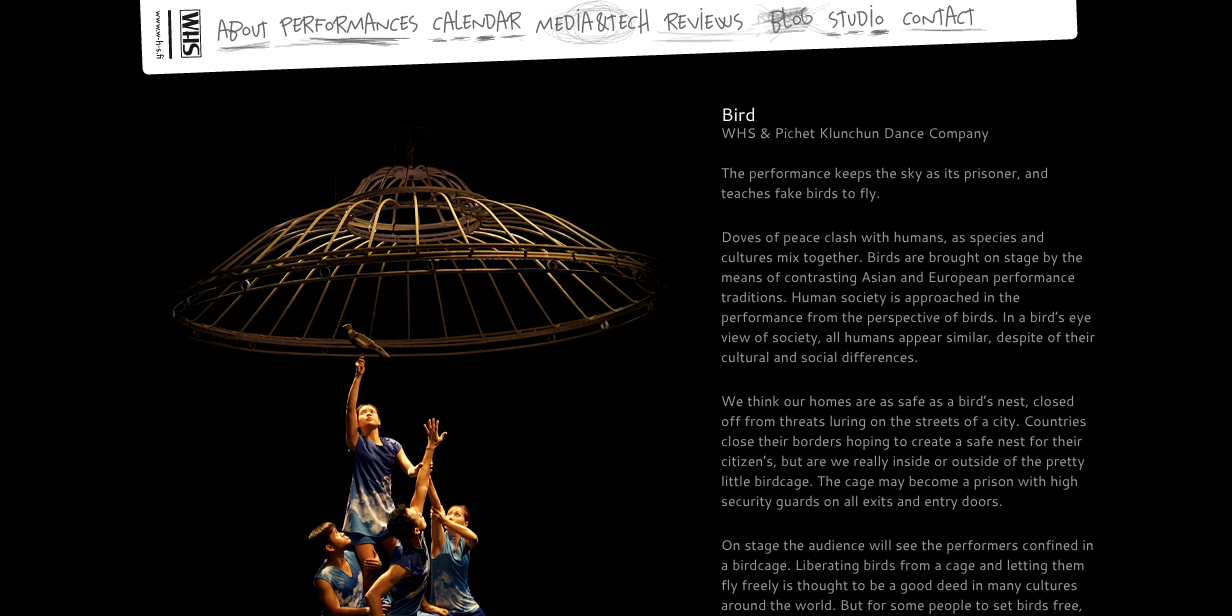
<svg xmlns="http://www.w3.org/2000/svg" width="1232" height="616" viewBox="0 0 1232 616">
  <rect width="100%" height="100%" fill="#000"/>
  <image x="140" y="0" width="938" height="75" href="img/1.png"/>
  <image x="209" y="19" width="67" height="54" href="img/2.png"/>
  <image x="279" y="12" width="141" height="58" href="img/3.png"/>
  <image x="425" y="10" width="106" height="54" href="img/4.png"/>
  <image x="655" y="8" width="93" height="48" href="img/5.png"/>
  <image x="822" y="2" width="72" height="47" href="img/6.png"/>
  <image x="897" y="5" width="100" height="41" href="img/7.png"/>
  <image x="168" y="126" width="501" height="490" href="img/8.png"/>
  <text x="721" y="121" font-family="Cantarell" font-size="18" fill="#fff">Bird</text>
  <g font-family="Cantarell" font-size="14" fill="#999">
    <text x="721" y="138">WHS &amp; Pichet Klunchun Dance Company</text>
    <text x="721" y="178">The performance keeps the sky as its prisoner, and</text>
    <text x="721" y="198">teaches fake birds to fly.</text>
    <text x="721" y="242">Doves of peace clash with humans, as species and</text>
    <text x="721" y="262">cultures mix together. Birds are brought on stage by the</text>
    <text x="721" y="282">means of contrasting Asian and European performance</text>
    <text x="721" y="302">traditions. Human society is approached in the</text>
    <text x="721" y="322">performance from the perspective of birds. In a bird’s eye</text>
    <text x="721" y="342">view of society, all humans appear similar, despite of their</text>
    <text x="721" y="362">cultural and social differences.</text>
    <text x="721" y="406">We think our homes are as safe as a bird’s nest, closed</text>
    <text x="721" y="426">off from threats luring on the streets of a city. Countries</text>
    <text x="721" y="446">close their borders hoping to create a safe nest for their</text>
    <text x="721" y="466">citizen’s, but are we really inside or outside of the pretty</text>
    <text x="721" y="486">little birdcage. The cage may become a prison with high</text>
    <text x="721" y="506">security guards on all exits and entry doors.</text>
    <text x="721" y="550">On stage the audience will see the performers confined in</text>
    <text x="721" y="570">a birdcage. Liberating birds from a cage and letting them</text>
    <text x="721" y="590">fly freely is thought to be a good deed in many cultures</text>
    <text x="721" y="610">around the world. But for some people to set birds free,</text>
  </g>
</svg>
